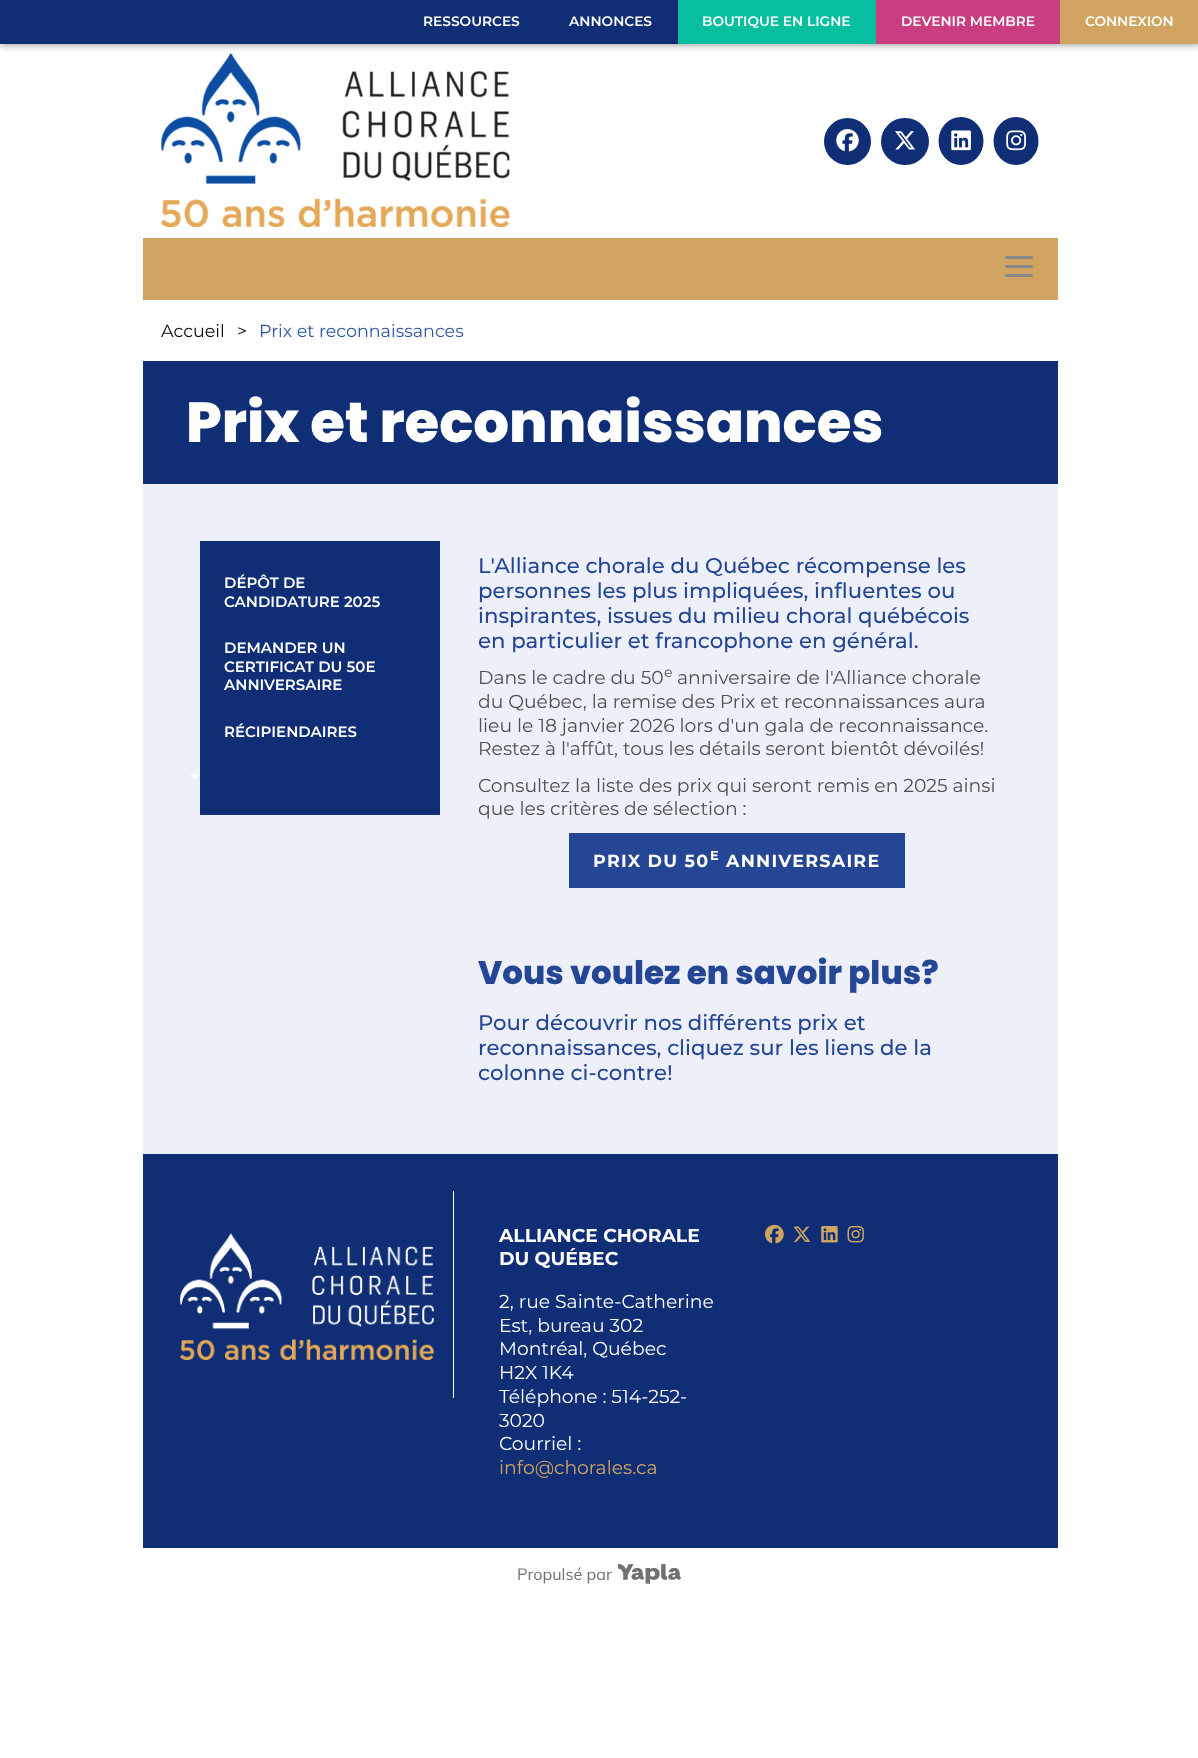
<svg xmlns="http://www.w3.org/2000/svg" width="1198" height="1758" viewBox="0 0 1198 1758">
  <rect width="100%" height="100%" fill="#fff"/>
  <path d="M0 0h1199v44H0z" fill="#828282" filter="blur(4px)"/>
  <path d="M0 0h678v44H0z" fill="#0f2e76"/>
  <path d="M678 0h198v44H678z" fill="#07bf9e"/>
  <path d="M876 0h184v44H876z" fill="#ca3d81"/>
  <path d="M1060 0h138v44H1060z" fill="#d1a561"/>
  <image x="161" y="53" width="349" height="174" href="img/1.png"/>
  <circle cx="847.5" cy="141.5" r="23.5" fill="#0f2e76"/>
  <image x="836" y="129" width="23" height="23" href="img/2.png"/>
  <rect x="881" y="118" width="48" height="47" rx="23.5" fill="#0f2e76"/>
  <image x="895" y="131" width="20" height="19" href="img/3.png"/>
  <ellipse cx="961" cy="141" rx="22.5" ry="24" fill="#0f2e76"/>
  <image x="951" y="130" width="20" height="21" href="img/4.png"/>
  <ellipse cx="1016" cy="141" rx="22.5" ry="24" fill="#0f2e76"/>
  <image x="1006" y="130" width="20" height="21" href="img/5.png"/>
  <path d="M143 238h915v62H143z" fill="#d1a561"/>
  <rect x="1005" y="256" width="28" height="3" rx="1.5" fill="#888"/>
  <rect x="1005" y="265" width="28" height="3" rx="1.5" fill="#888"/>
  <rect x="1005" y="274" width="28" height="3" rx="1.5" fill="#888"/>
  <path d="M143 361h915v123H143z" fill="#0f2e76"/>
  <path d="M143 484h915v670H143z" fill="#edf0f9"/>
  <path d="M200 541h240v274H200z" fill="#0f2e76"/>
  <path d="M190 774H200L195 779Z" fill="#fff"/>
  <path d="M569 833h336v55H569z" fill="#254694"/>
  <path d="M143 1154h915v394H143z" fill="#0f2e76"/>
  <path d="M453 1191h1v207H453z" fill="#fff"/>
  <image x="180" y="1233" width="254" height="127" href="img/6.png"/>
  <image x="765" y="1224" width="19" height="20" href="img/7.png"/>
  <image x="793" y="1226" width="18" height="16" href="img/8.png"/>
  <image x="821" y="1226" width="17" height="17" href="img/9.png"/>
  <image x="847" y="1226" width="17" height="17" href="img/10.png"/>
  <image x="618" y="1564" width="63" height="20" href="img/11.png"/>
  <g font-family="Montserrat" font-size="13.75" font-weight="600" fill="#fff">
    <text x="423" y="26">RESSOURCES</text>
    <text x="569" y="26">ANNONCES</text>
    <text x="702" y="26">BOUTIQUE EN LIGNE</text>
    <text x="901" y="26">DEVENIR MEMBRE</text>
    <text x="1085" y="26">CONNEXION</text>
  </g>
  <g font-family="Montserrat" font-size="17.5" fill="#0a0c0c">
    <text x="161" y="337">Accueil</text>
    <text x="237" y="337">&gt;</text>
  </g>
  <text x="259" y="337" font-family="Montserrat" font-size="17.5" fill="#2c56a3">Prix et reconnaissances</text>
  <text x="186" y="442" font-family="Poppins" font-size="56.25" font-weight="800" fill="#fff">Prix et reconnaissances</text>
  <g font-family="Montserrat" font-size="15" font-weight="600" fill="#fff">
    <text x="224" y="588">DÉPÔT DE</text>
    <text x="224" y="607">CANDIDATURE 2025</text>
    <text x="224" y="653">DEMANDER UN</text>
    <text x="224" y="672">CERTIFICAT DU 50E</text>
    <text x="224" y="690">ANNIVERSAIRE</text>
    <text x="224" y="737">RÉCIPIENDAIRES</text>
  </g>
  <g font-family="Montserrat" font-size="21.25" font-weight="500" fill="#254694">
    <text x="478" y="573">L'Alliance chorale du Québec récompense les</text>
    <text x="478" y="598">personnes les plus impliquées, influentes ou</text>
    <text x="478" y="623">inspirantes, issues du milieu choral québécois</text>
    <text x="478" y="648">en particulier et francophone en général.</text>
  </g>
  <text x="478" y="684" font-family="Montserrat" font-size="18.75" fill="#4f4f4f">Dans le cadre du 50</text>
  <text x="664" y="677" font-family="Montserrat" font-size="14" fill="#4f4f4f">e</text>
  <g font-family="Montserrat" font-size="18.75" fill="#4f4f4f">
    <text x="677" y="684">anniversaire de l'Alliance chorale</text>
    <text x="478" y="708">du Québec, la remise des Prix et reconnaissances aura</text>
    <text x="478" y="732">lieu le 18 janvier 2026 lors d'un gala de reconnaissance.</text>
    <text x="478" y="755">Restez à l'affût, tous les détails seront bientôt dévoilés!</text>
    <text x="478" y="792">Consultez la liste des prix qui seront remis en 2025 ainsi</text>
    <text x="478" y="815">que les critères de sélection :</text>
  </g>
  <text x="593" y="867" font-family="Montserrat" font-size="17.5" font-weight="bold" letter-spacing="1.25" fill="#fff">PRIX DU 50</text>
  <text x="710" y="860" font-family="Montserrat" font-size="13" font-weight="bold" letter-spacing="1.25" fill="#fff">E</text>
  <text x="726" y="867" font-family="Montserrat" font-size="17.5" font-weight="bold" letter-spacing="1.25" fill="#fff">ANNIVERSAIRE</text>
  <text x="478" y="984" font-family="Poppins" font-size="32.5" font-weight="800" fill="#254694">Vous voulez en savoir plus?</text>
  <g font-family="Montserrat" font-size="21.25" font-weight="500" fill="#254694">
    <text x="478" y="1030">Pour découvrir nos différents prix et</text>
    <text x="478" y="1055">reconnaissances, cliquez sur les liens de la</text>
    <text x="478" y="1080">colonne ci-contre!</text>
  </g>
  <g font-family="Montserrat" font-size="18.75" font-weight="bold" fill="#fff">
    <text x="499" y="1242">ALLIANCE CHORALE</text>
    <text x="499" y="1265">DU QUÉBEC</text>
  </g>
  <g font-family="Montserrat" font-size="18.75" fill="#fff">
    <text x="499" y="1308">2, rue Sainte-Catherine</text>
    <text x="499" y="1332">Est, bureau 302</text>
    <text x="499" y="1355">Montréal, Québec</text>
    <text x="499" y="1379">H2X 1K4</text>
    <text x="499" y="1403">Téléphone : 514-252-</text>
    <text x="499" y="1427">3020</text>
    <text x="499" y="1450">Courriel :</text>
  </g>
  <text x="499" y="1474" font-family="Montserrat" font-size="18.75" fill="#d1a561">info@chorales.ca</text>
  <text x="517" y="1580" font-family="Muli" font-size="16.25" fill="#717171">Propulsé par</text>
</svg>
